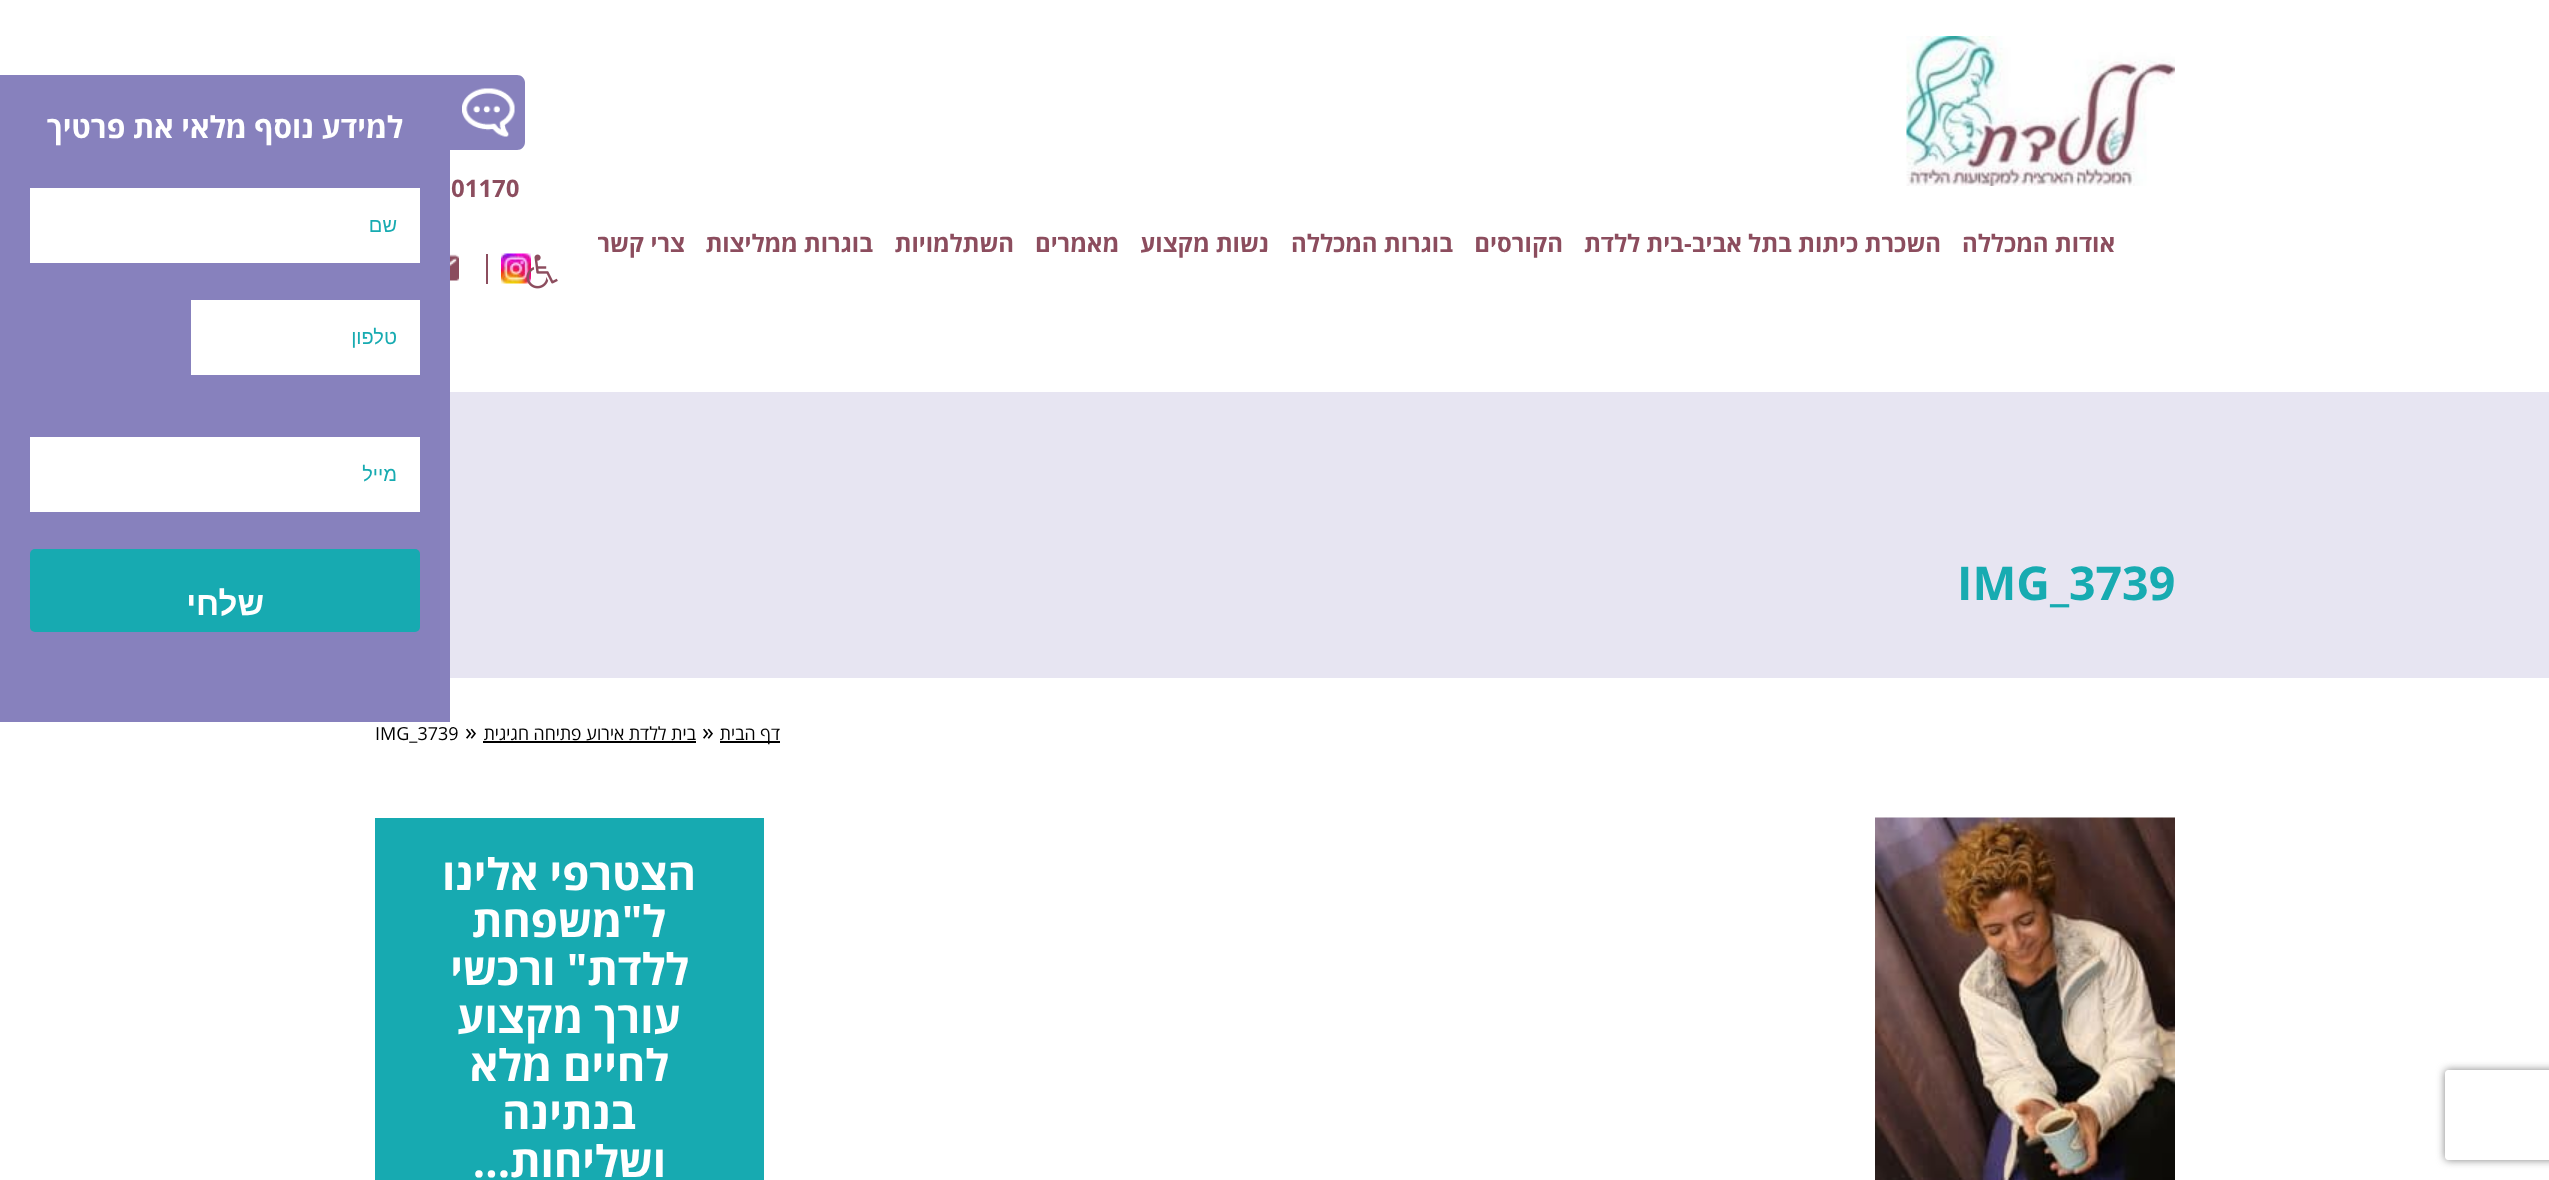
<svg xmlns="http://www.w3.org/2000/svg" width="2549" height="1180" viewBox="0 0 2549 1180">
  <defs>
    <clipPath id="clip1"><path d="M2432 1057H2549V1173H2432ZM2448 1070H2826C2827.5 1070 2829 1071.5 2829 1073V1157C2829 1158.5 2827.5 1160 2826 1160H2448C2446.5 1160 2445 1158.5 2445 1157V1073C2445 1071.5 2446.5 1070 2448 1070Z" clip-rule="evenodd"/></clipPath>
  </defs>
  <rect width="100%" height="100%" fill="#fff"/>
  <g clip-path="url(#clip1)">
    <rect x="2445" y="1070" width="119" height="90" rx="3" fill="#808080" filter="blur(4px)"/>
  </g>
  <image x="1906" y="36" width="269" height="150" href="img/1.png"/>
  <image x="501" y="253" width="30" height="31" href="img/3.png"/>
  <image x="526" y="254" width="32" height="35" href="img/2.png"/>
  <path d="M486 254h2v30H486z" fill="#8c4d5e"/>
  <image x="450" y="254" width="9" height="27" href="img/4.png"/>
  <path d="M450 75H517C521.5 75 525 78.5 525 83V142C525 146.5 521.5 150 517 150H450Z" fill="#8781bd"/>
  <image x="462" y="88" width="53" height="49" href="img/5.png"/>
  <path d="M0 75h450v647H0z" fill="#8781bd"/>
  <path d="M30 188h390v75H30z" fill="#fff"/>
  <path d="M191 300h229v75H191z" fill="#fff"/>
  <path d="M30 437h390v75H30z" fill="#fff"/>
  <rect x="30" y="549" width="390" height="83" rx="5" fill="#17aab1"/>
  <path d="M450 392h2099v286H450z" fill="#e7e5f2"/>
  <path d="M720 741h60v2H720z" fill="#000"/>
  <path d="M483 741h213v2H483z" fill="#000"/>
  <image x="1875" y="817" width="300" height="363" href="img/6.png"/>
  <path d="M375 818h389v362H375z" fill="#17aab1"/>
  <text x="451" y="197" font-family="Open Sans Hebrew" font-size="24" font-weight="bold" fill="#8c4d5e">01170</text>
  <g font-family="Open Sans Hebrew" font-size="24" font-weight="bold" direction="rtl" fill="#8c4d5e">
    <text x="2115" y="252">אודות המכללה</text>
    <text x="1941" y="252">השכרת כיתות בתל אביב-בית ללדת</text>
    <text x="1563" y="252">הקורסים</text>
    <text x="1453" y="252">בוגרות המכללה</text>
    <text x="1269" y="252">נשות מקצוע</text>
    <text x="1119" y="252">מאמרים</text>
    <text x="1014" y="252">השתלמויות</text>
    <text x="873" y="252">בוגרות ממליצות</text>
    <text x="685" y="252">צרי קשר</text>
  </g>
  <text x="403" y="138" font-family="Open Sans Hebrew" font-size="30" font-weight="bold" direction="rtl" fill="#fff">למידע נוסף מלאי את פרטיך</text>
  <g font-family="Liberation Sans" font-size="20" direction="rtl" fill="#17abb1">
    <text x="397" y="232">שם</text>
    <text x="397" y="344">טלפון</text>
    <text x="397" y="481">מייל</text>
  </g>
  <text x="264" y="615" font-family="Liberation Sans" font-size="33" font-weight="bold" direction="rtl" fill="#fff">שלחי</text>
  <text x="1957" y="600" font-family="Open Sans Hebrew" font-size="46.5" font-weight="bold" fill="#17abb1">IMG_3739</text>
  <text x="780" y="740" font-family="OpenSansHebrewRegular" font-size="18" direction="rtl" fill="#000">דף הבית</text>
  <text x="702" y="740" font-family="OpenSansHebrewRegular" font-size="24" fill="#000">»</text>
  <text x="696" y="740" font-family="OpenSansHebrewRegular" font-size="18" direction="rtl" fill="#000">בית ללדת אירוע פתיחה חגיגית</text>
  <text x="465" y="740" font-family="OpenSansHebrewRegular" font-size="24" fill="#000">»</text>
  <text x="375" y="740" font-family="OpenSansHebrewRegular" font-size="18" fill="#000">IMG_3739</text>
  <g font-family="Open Sans Hebrew" font-size="43.5" font-weight="bold" direction="rtl" fill="#fff">
    <text x="696" y="890">הצטרפי אלינו</text>
    <text x="666" y="937">ל"משפחת</text>
    <text x="689" y="985">ללדת" ורכשי</text>
    <text x="681" y="1033">עורך מקצוע</text>
    <text x="669" y="1081">לחיים מלא</text>
    <text x="636" y="1129">בנתינה</text>
    <text x="666" y="1177">ושליחות...</text>
  </g>
</svg>
